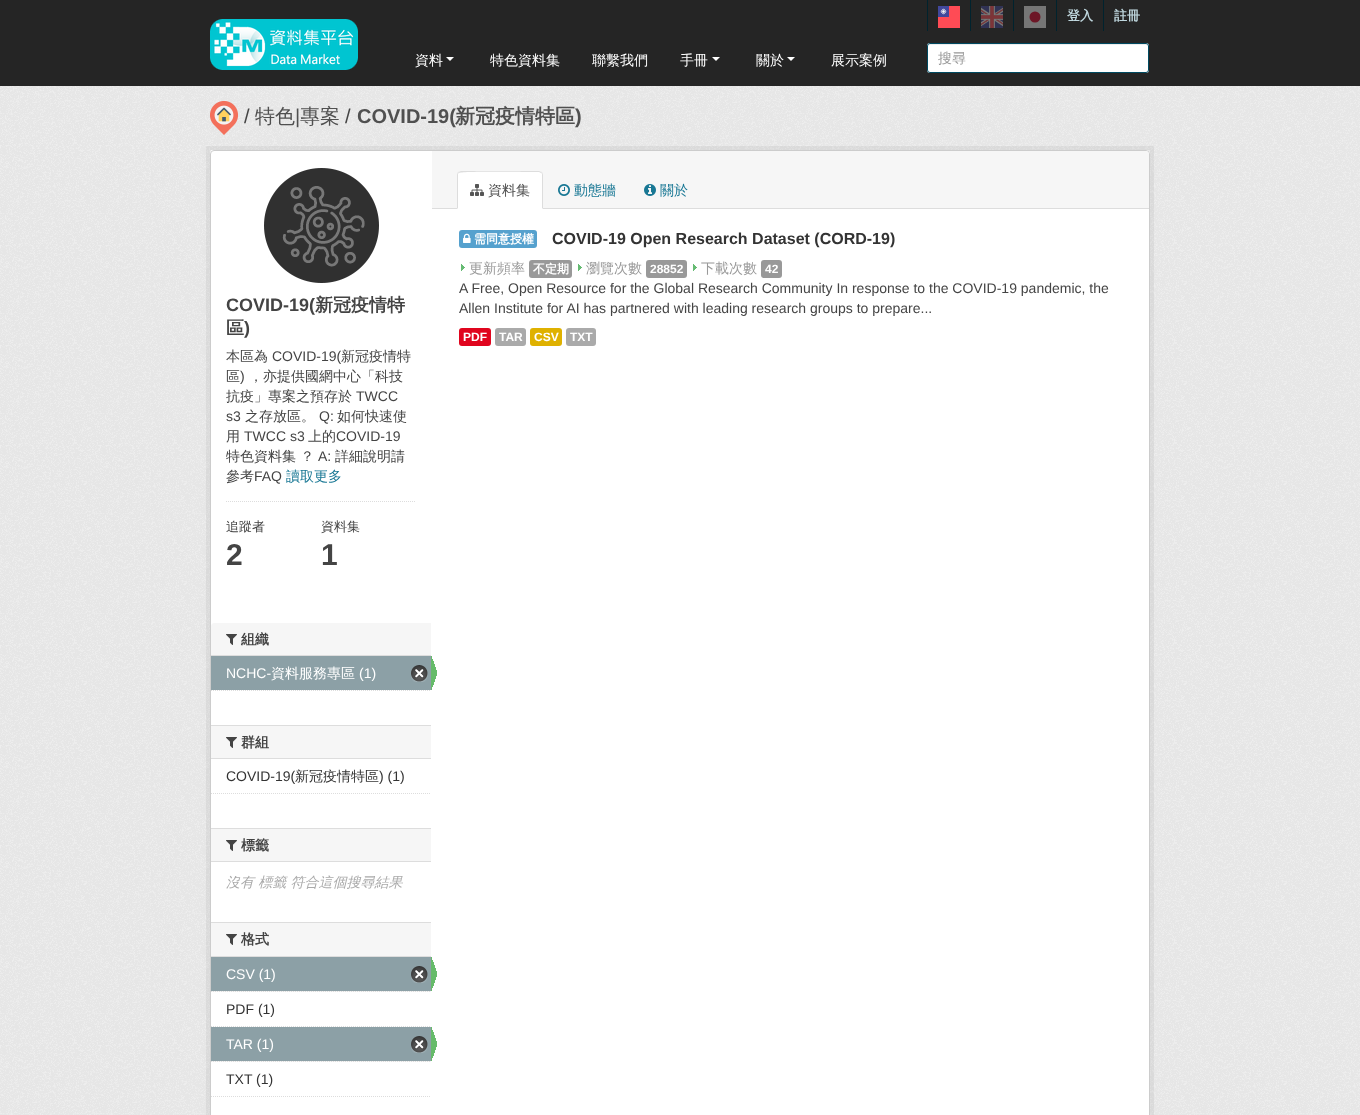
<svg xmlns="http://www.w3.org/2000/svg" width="1360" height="1115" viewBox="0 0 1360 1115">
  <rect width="100%" height="100%" fill="#252525"/>
  <path d="M927 0h1v31H927z" fill="#00232e"/>
  <image x="938" y="6" width="22" height="22" href="img/1.png"/>
  <path d="M970 0h1v31H970z" fill="#00232e"/>
  <image x="981" y="6" width="22" height="22" href="img/2.png"/>
  <path d="M1013 0h1v31H1013z" fill="#00232e"/>
  <path d="M1024 6h22v22H1024z" fill="#767676"/>
  <circle cx="1035" cy="17" r="5.5" fill="#6d1626"/>
  <path d="M1056 0h1v31H1056z" fill="#00232e"/>
  <path d="M1103 0h1v31H1103z" fill="#00232e"/>
  <image x="210" y="19" width="148" height="51" href="img/3.png"/>
  <path d="M446 57H454L450 61Z" fill="#fff"/>
  <path d="M712 57H720L716 61Z" fill="#fff"/>
  <path d="M787 57H795L791 61Z" fill="#fff"/>
  <rect x="927" y="43" width="222" height="30" rx="3" fill="#fff"/>
  <path d="M930 45H1146C1147 45 1148 46 1148 47C1148 46 1148 44 1146 44H930L929 45L928 47C928 46 929 45 930 45Z" fill="#ececec"/>
  <rect x="927.5" y="43.5" width="221" height="29" rx="2.5" fill="none" stroke="#004a61"/>
  <path d="M0 86h1360v1029H0z" fill="#eee"/>
  <image x="0" y="86" width="1360" height="1029" href="img/4.png"/>
  <image x="210" y="101" width="28" height="34" href="img/5.png"/>
  <path d="M208 148h944v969H208z" fill="none" stroke="#0000000d" stroke-width="4"/>
  <rect x="210" y="150" width="940" height="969" rx="4" fill="#fff"/>
  <path d="M211 150h2v1H211z" fill="#fff"/>
  <rect x="210.5" y="150.5" width="939" height="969" rx="3.5" fill="none" stroke="#ccc"/>
  <path d="M432 151H1146C1147.5 151 1149 152.5 1149 154V209H432Z" fill="#f6f6f6"/>
  <path d="M432 208h717v1H432z" fill="#ddd"/>
  <path d="M461 171H539C541 171 543 173 543 175V209H457V175C457 173 459 171 461 171Z" fill="#fff"/>
  <path d="M461 171L458 172L459 173C461 171 519 172 526 172H539L541 173L542 172L539 171Z" fill="#ddd"/>
  <path d="M543 209V175C543 174 542.5 173 542 172L541 173C542 173 542 174 542 175V208Z" fill="#ddd"/>
  <path d="M457 209L458 208V175C458 174 458 173 459 173L458 172C457.5 173 457 174 457 175Z" fill="#ddd"/>
  <image x="470" y="184" width="14" height="12" href="img/6.png"/>
  <image x="558" y="184" width="12" height="12" href="img/7.png"/>
  <image x="644" y="184" width="12" height="12" href="img/8.png"/>
  <rect x="459" y="230" width="78" height="18" rx="3" fill="#55a1ce"/>
  <image x="463" y="233" width="8" height="10" href="img/9.png"/>
  <image x="461" y="264" width="4" height="7" href="img/10.png"/>
  <rect x="529" y="260" width="43" height="18" rx="3" fill="#999"/>
  <image x="578" y="264" width="4" height="7" href="img/10.png"/>
  <rect x="646" y="260" width="41" height="18" rx="3" fill="#999"/>
  <image x="693" y="264" width="4" height="7" href="img/10.png"/>
  <rect x="761" y="260" width="21" height="18" rx="3" fill="#999"/>
  <rect x="459" y="328" width="32" height="18" rx="3" fill="#e0051e"/>
  <rect x="495" y="328" width="31" height="18" rx="3" fill="#aaa"/>
  <rect x="530" y="328" width="32" height="18" rx="3" fill="#dfb100"/>
  <rect x="566" y="328" width="30" height="18" rx="3" fill="#aaa"/>
  <image x="264" y="168" width="115" height="115" href="img/11.png"/>
  <path d="M226 501.5H416" fill="none" stroke="#ddd" stroke-dasharray="1 1"/>
  <path d="M214 623H431V656H211V626C211 624.5 212.5 623 214 623Z" fill="#f6f6f6"/>
  <path d="M211 655h220v1H211z" fill="#ddd"/>
  <image x="226" y="634" width="11" height="11" href="img/12.png"/>
  <path d="M211 656h220v34H211z" fill="#8ca0a6"/>
  <image x="411" y="665" width="17" height="17" href="img/13.png"/>
  <image x="431" y="656" width="6" height="34" href="img/14.png"/>
  <path d="M211 690.5H431" fill="none" stroke="#ddd" stroke-dasharray="1 1"/>
  <path d="M211 726h220v32H211z" fill="#f6f6f6"/>
  <path d="M211 725h220v1H211z" fill="#ddd"/>
  <path d="M211 758h220v1H211z" fill="#ddd"/>
  <image x="226" y="737" width="11" height="11" href="img/12.png"/>
  <path d="M211 793.5H431" fill="none" stroke="#ddd" stroke-dasharray="1 1"/>
  <path d="M211 829h220v32H211z" fill="#f6f6f6"/>
  <path d="M211 828h220v1H211z" fill="#ddd"/>
  <path d="M211 861h220v1H211z" fill="#ddd"/>
  <image x="226" y="840" width="11" height="11" href="img/12.png"/>
  <path d="M211 923h220v33H211z" fill="#f6f6f6"/>
  <path d="M211 922h220v1H211z" fill="#ddd"/>
  <path d="M211 956h220v1H211z" fill="#ddd"/>
  <image x="226" y="934" width="11" height="11" href="img/12.png"/>
  <path d="M212 991h219v1H212z" fill="#f6f6f6"/>
  <path d="M211 991.5H431" fill="none" stroke="#ddd" stroke-dasharray="1 1"/>
  <path d="M211 957h220v34H211z" fill="#8ca0a6"/>
  <image x="411" y="966" width="17" height="17" href="img/13.png"/>
  <image x="431" y="957" width="6" height="34" href="img/14.png"/>
  <path d="M211 1026.5H431" fill="none" stroke="#ddd" stroke-dasharray="1 1"/>
  <path d="M212 1061h219v1H212z" fill="#f6f6f6"/>
  <path d="M211 1061.5H431" fill="none" stroke="#ddd" stroke-dasharray="1 1"/>
  <path d="M211 1027h220v34H211z" fill="#8ca0a6"/>
  <image x="411" y="1036" width="17" height="17" href="img/13.png"/>
  <image x="431" y="1027" width="6" height="34" href="img/14.png"/>
  <path d="M211 1096.5H431" fill="none" stroke="#ddd" stroke-dasharray="1 1"/>
  <g font-family="WenQuanYi Zen Hei" font-size="13" font-weight="bold" fill="#bfd7de">
    <text x="1067" y="20">登入</text>
    <text x="1114" y="20">註冊</text>
  </g>
  <g font-family="WenQuanYi Zen Hei" font-size="14" font-weight="500" fill="#fff">
    <text x="415" y="65">資料</text>
    <text x="490" y="65">特色資料集</text>
    <text x="592" y="65">聯繫我們</text>
    <text x="680" y="65">手冊</text>
    <text x="756" y="65">關於</text>
    <text x="831" y="65">展示案例</text>
  </g>
  <text x="938" y="63" font-family="WenQuanYi Zen Hei" font-size="14" font-weight="500" fill="#999">搜尋</text>
  <text x="244" y="123" font-family="Liberation Sans" font-size="20" fill="#444">/</text>
  <text x="255" y="123" font-family="WenQuanYi Zen Hei" font-size="20" font-weight="500" fill="#505050">特色</text>
  <text x="295" y="123" font-family="Liberation Sans" font-size="20" fill="#505050">|</text>
  <text x="300" y="123" font-family="WenQuanYi Zen Hei" font-size="20" font-weight="500" fill="#505050">專案</text>
  <text x="345" y="123" font-family="Liberation Sans" font-size="20" fill="#444">/</text>
  <text x="357" y="123" font-family="Liberation Sans" font-size="20" font-weight="bold" fill="#505050">COVID-19(</text>
  <text x="455" y="123" font-family="WenQuanYi Zen Hei" font-size="20" font-weight="bold" fill="#505050">新冠疫情特區</text>
  <text x="575" y="123" font-family="Liberation Sans" font-size="20" font-weight="bold" fill="#505050">)</text>
  <text x="488" y="195" font-family="WenQuanYi Zen Hei" font-size="14" font-weight="500" fill="#505050">資料集</text>
  <g font-family="WenQuanYi Zen Hei" font-size="14" font-weight="500" fill="#187794">
    <text x="574" y="195">動態牆</text>
    <text x="660" y="195">關於</text>
  </g>
  <text x="474" y="243" font-family="WenQuanYi Zen Hei" font-size="12" font-weight="bold" fill="#fff">需同意授權</text>
  <text x="552" y="244" font-family="Liberation Sans" font-size="16" font-weight="bold" fill="#333">COVID-19 Open Research Dataset (CORD-19)</text>
  <text x="469" y="273" font-family="WenQuanYi Zen Hei" font-size="14" font-weight="500" fill="#999">更新頻率</text>
  <text x="533" y="273" font-family="WenQuanYi Zen Hei" font-size="12" font-weight="bold" fill="#fff">不定期</text>
  <text x="586" y="273" font-family="WenQuanYi Zen Hei" font-size="14" font-weight="500" fill="#999">瀏覽次數</text>
  <text x="650" y="273" font-family="Liberation Sans" font-size="12" font-weight="bold" fill="#fff">28852</text>
  <text x="701" y="273" font-family="WenQuanYi Zen Hei" font-size="14" font-weight="500" fill="#999">下載次數</text>
  <text x="765" y="273" font-family="Liberation Sans" font-size="12" font-weight="bold" fill="#fff">42</text>
  <g font-family="Liberation Sans" font-size="14" fill="#444">
    <text x="459" y="293">A Free, Open Resource for the Global Research Community In response to the COVID-19 pandemic, the</text>
    <text x="459" y="313">Allen Institute for AI has partnered with leading research groups to prepare...</text>
  </g>
  <g font-family="Liberation Sans" font-size="12" font-weight="bold" fill="#fff">
    <text x="463" y="341">PDF</text>
    <text x="499" y="341">TAR</text>
    <text x="534" y="341">CSV</text>
    <text x="570" y="341">TXT</text>
  </g>
  <text x="226" y="311" font-family="Liberation Sans" font-size="18" font-weight="bold" fill="#444">COVID-19(</text>
  <g font-family="WenQuanYi Zen Hei" font-size="18" font-weight="bold" fill="#444">
    <text x="315" y="311">新冠疫情特</text>
    <text x="226" y="334">區</text>
  </g>
  <text x="244" y="334" font-family="Liberation Sans" font-size="18" font-weight="bold" fill="#444">)</text>
  <text x="226" y="361" font-family="WenQuanYi Zen Hei" font-size="14" font-weight="500" fill="#444">本區為</text>
  <text x="272" y="361" font-family="Liberation Sans" font-size="14" fill="#444">COVID-19(</text>
  <g font-family="WenQuanYi Zen Hei" font-size="14" font-weight="500" fill="#444">
    <text x="341" y="361">新冠疫情特</text>
    <text x="226" y="381">區</text>
  </g>
  <text x="240" y="381" font-family="Liberation Sans" font-size="14" fill="#444">)</text>
  <g font-family="WenQuanYi Zen Hei" font-size="14" font-weight="500" fill="#444">
    <text x="249" y="381">，亦提供國網中心「科技</text>
    <text x="226" y="401">抗疫」專案之預存於</text>
  </g>
  <g font-family="Liberation Sans" font-size="14" fill="#444">
    <text x="356" y="401">TWCC</text>
    <text x="226" y="421">s3</text>
  </g>
  <text x="245" y="421" font-family="WenQuanYi Zen Hei" font-size="14" font-weight="500" fill="#444">之存放區。</text>
  <text x="319" y="421" font-family="Liberation Sans" font-size="14" fill="#444">Q:</text>
  <g font-family="WenQuanYi Zen Hei" font-size="14" font-weight="500" fill="#444">
    <text x="337" y="421">如何快速使</text>
    <text x="226" y="441">用</text>
  </g>
  <text x="244" y="441" font-family="Liberation Sans" font-size="14" fill="#444">TWCC s3</text>
  <text x="308" y="441" font-family="WenQuanYi Zen Hei" font-size="14" font-weight="500" fill="#444">上的</text>
  <text x="336" y="441" font-family="Liberation Sans" font-size="14" fill="#444">COVID-19</text>
  <text x="226" y="461" font-family="WenQuanYi Zen Hei" font-size="14" font-weight="500" fill="#444">特色資料集 ？</text>
  <text x="318" y="461" font-family="Liberation Sans" font-size="14" fill="#444">A:</text>
  <g font-family="WenQuanYi Zen Hei" font-size="14" font-weight="500" fill="#444">
    <text x="335" y="461">詳細說明請</text>
    <text x="226" y="481">參考</text>
  </g>
  <text x="254" y="481" font-family="Liberation Sans" font-size="14" fill="#444">FAQ</text>
  <text x="286" y="481" font-family="WenQuanYi Zen Hei" font-size="14" font-weight="500" fill="#187794">讀取更多</text>
  <text x="226" y="531" font-family="WenQuanYi Zen Hei" font-size="13" font-weight="500" fill="#444">追蹤者</text>
  <text x="226" y="565" font-family="Liberation Sans" font-size="30" font-weight="bold" fill="#444">2</text>
  <text x="321" y="531" font-family="WenQuanYi Zen Hei" font-size="13" font-weight="500" fill="#444">資料集</text>
  <text x="321" y="565" font-family="Liberation Sans" font-size="30" font-weight="bold" fill="#444">1</text>
  <text x="241" y="644" font-family="WenQuanYi Zen Hei" font-size="14" font-weight="bold" fill="#444">組織</text>
  <text x="226" y="678" font-family="Liberation Sans" font-size="14" fill="#fff">NCHC-</text>
  <text x="271" y="678" font-family="WenQuanYi Zen Hei" font-size="14" font-weight="500" fill="#fff">資料服務專區</text>
  <text x="359" y="678" font-family="Liberation Sans" font-size="14" fill="#fff">(1)</text>
  <text x="241" y="747" font-family="WenQuanYi Zen Hei" font-size="14" font-weight="bold" fill="#444">群組</text>
  <text x="226" y="781" font-family="Liberation Sans" font-size="14" fill="#333">COVID-19(</text>
  <text x="295" y="781" font-family="WenQuanYi Zen Hei" font-size="14" font-weight="500" fill="#333">新冠疫情特區</text>
  <text x="379" y="781" font-family="Liberation Sans" font-size="14" fill="#333">) (1)</text>
  <text x="241" y="850" font-family="WenQuanYi Zen Hei" font-size="14" font-weight="bold" fill="#444">標籤</text>
  <text x="226" y="887" font-family="WenQuanYi Zen Hei" font-size="14" font-weight="500" font-style="italic" fill="#aaa">沒有 標籤 符合這個搜尋結果</text>
  <text x="241" y="944" font-family="WenQuanYi Zen Hei" font-size="14" font-weight="bold" fill="#444">格式</text>
  <text x="226" y="979" font-family="Liberation Sans" font-size="14" fill="#fff">CSV (1)</text>
  <text x="226" y="1014" font-family="Liberation Sans" font-size="14" fill="#333">PDF (1)</text>
  <text x="226" y="1049" font-family="Liberation Sans" font-size="14" fill="#fff">TAR (1)</text>
  <text x="226" y="1084" font-family="Liberation Sans" font-size="14" fill="#333">TXT (1)</text>
</svg>
